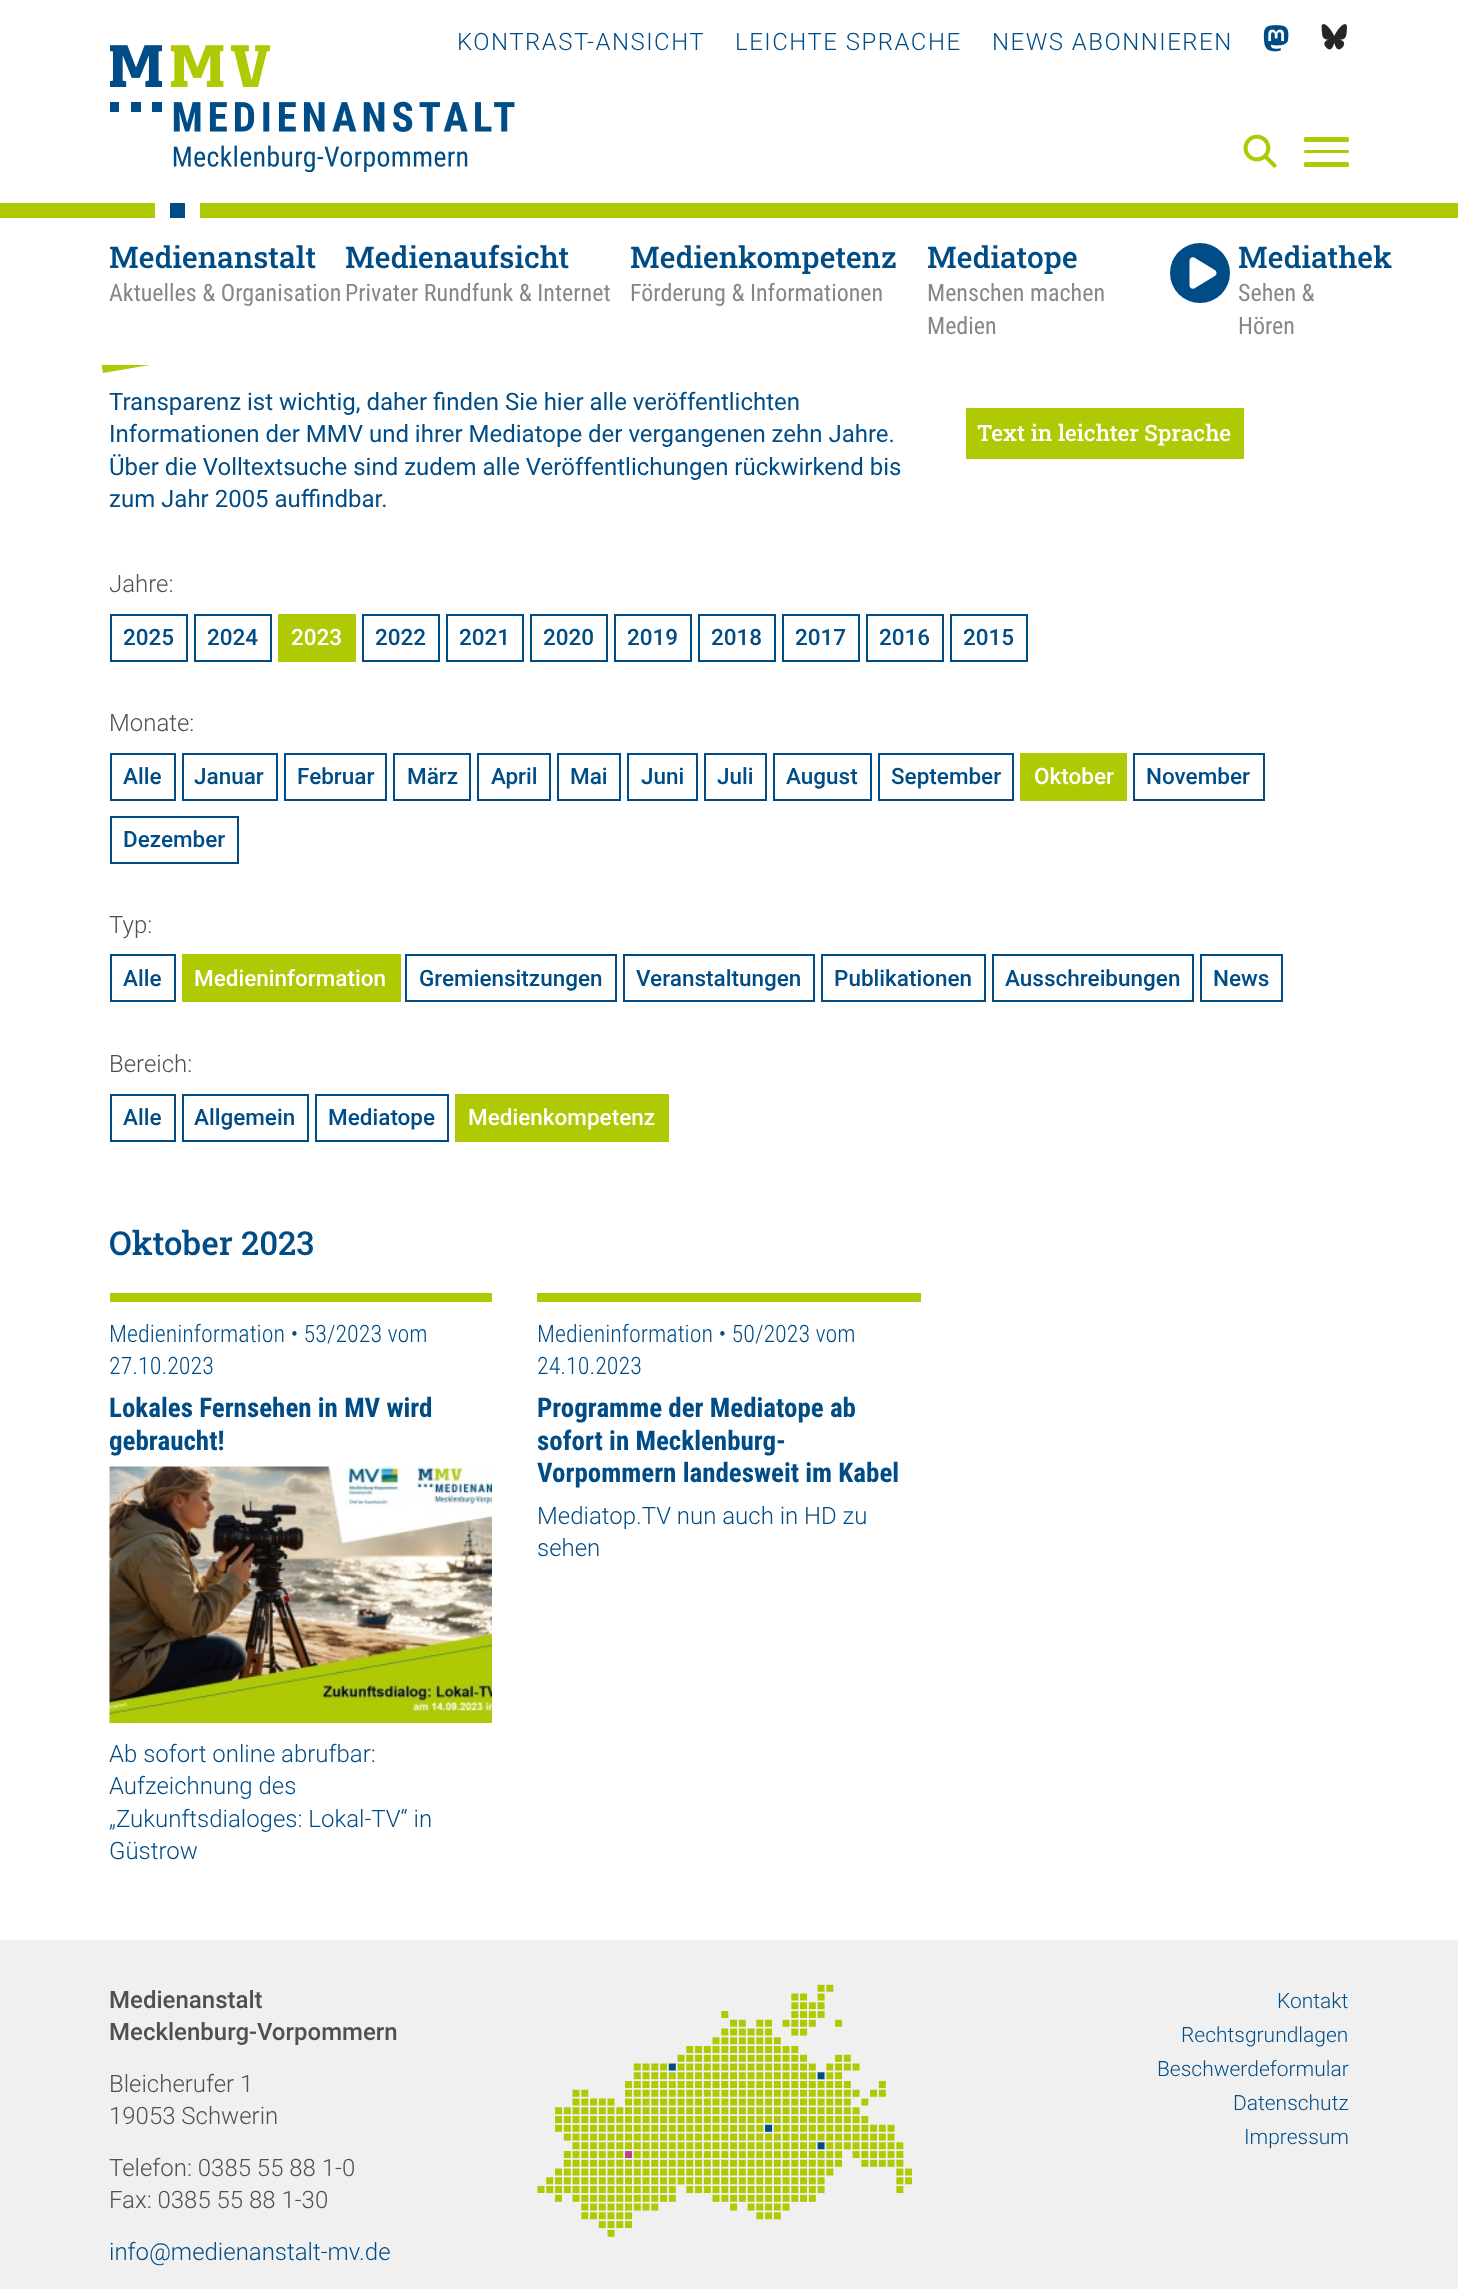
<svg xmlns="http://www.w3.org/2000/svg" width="1458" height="2289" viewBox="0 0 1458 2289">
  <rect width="100%" height="100%" fill="#fff"/>
  <path d="M87 284L176 269L191 358L103 373Z" fill="#afca05"/>
  <path d="M87 269h104v96H87z" fill="#fff"/>
  <image x="1263" y="25" width="26" height="27" href="img/1.png"/>
  <image x="1321" y="24" width="26" height="26" href="img/2.png"/>
  <image x="110" y="45" width="405" height="127" href="img/3.png"/>
  <image x="1243" y="134" width="34" height="34" href="img/4.png"/>
  <rect x="1304" y="137" width="45" height="5" rx="1.5" fill="#afca05"/>
  <rect x="1304" y="150" width="45" height="3" rx="1.5" fill="#afca05"/>
  <rect x="1304" y="162" width="45" height="5" rx="1.5" fill="#afca05"/>
  <path d="M0 203h1458v15H0z" fill="#afca05"/>
  <path d="M170 203h15v15H170z" fill="#004c86"/>
  <path d="M185 203h15v15H185z" fill="#fff"/>
  <path d="M155 203h15v15H155z" fill="#fff"/>
  <circle cx="1200" cy="273" r="30" fill="#004c86"/>
  <image x="1189" y="257" width="28" height="32" href="img/5.png"/>
  <path d="M966 408h278v51H966z" fill="#afca05"/>
  <path d="M111 615h76v46H111z" fill="none" stroke="#004c86" stroke-width="2"/>
  <path d="M195 615h76v46H195z" fill="none" stroke="#004c86" stroke-width="2"/>
  <path d="M278 614h78v48H278z" fill="#afca05"/>
  <path d="M363 615h76v46H363z" fill="none" stroke="#004c86" stroke-width="2"/>
  <path d="M447 615h76v46H447z" fill="none" stroke="#004c86" stroke-width="2"/>
  <path d="M531 615h76v46H531z" fill="none" stroke="#004c86" stroke-width="2"/>
  <path d="M615 615h76v46H615z" fill="none" stroke="#004c86" stroke-width="2"/>
  <path d="M699 615h76v46H699z" fill="none" stroke="#004c86" stroke-width="2"/>
  <path d="M783 615h76v46H783z" fill="none" stroke="#004c86" stroke-width="2"/>
  <path d="M867 615h76v46H867z" fill="none" stroke="#004c86" stroke-width="2"/>
  <path d="M951 615h76v46H951z" fill="none" stroke="#004c86" stroke-width="2"/>
  <path d="M111 754h64v46H111z" fill="none" stroke="#004c86" stroke-width="2"/>
  <path d="M183 754h94v46H183z" fill="none" stroke="#004c86" stroke-width="2"/>
  <path d="M285 754h101v46H285z" fill="none" stroke="#004c86" stroke-width="2"/>
  <path d="M394 754h76v46H394z" fill="none" stroke="#004c86" stroke-width="2"/>
  <path d="M478 754h72v46H478z" fill="none" stroke="#004c86" stroke-width="2"/>
  <path d="M558 754h62v46H558z" fill="none" stroke="#004c86" stroke-width="2"/>
  <path d="M628 754h69v46H628z" fill="none" stroke="#004c86" stroke-width="2"/>
  <path d="M705 754h61v46H705z" fill="none" stroke="#004c86" stroke-width="2"/>
  <path d="M774 754h97v46H774z" fill="none" stroke="#004c86" stroke-width="2"/>
  <path d="M879 754h134v46H879z" fill="none" stroke="#004c86" stroke-width="2"/>
  <path d="M1020 753h107v48H1020z" fill="#afca05"/>
  <path d="M1134 754h130v46H1134z" fill="none" stroke="#004c86" stroke-width="2"/>
  <path d="M111 817h127v46H111z" fill="none" stroke="#004c86" stroke-width="2"/>
  <path d="M111 955h64v46H111z" fill="none" stroke="#004c86" stroke-width="2"/>
  <path d="M182 954h219v48H182z" fill="#afca05"/>
  <path d="M406 955h210v46H406z" fill="none" stroke="#004c86" stroke-width="2"/>
  <path d="M624 955h190v46H624z" fill="none" stroke="#004c86" stroke-width="2"/>
  <path d="M822 955h163v46H822z" fill="none" stroke="#004c86" stroke-width="2"/>
  <path d="M993 955h200v46H993z" fill="none" stroke="#004c86" stroke-width="2"/>
  <path d="M1201 955h81v46H1201z" fill="none" stroke="#004c86" stroke-width="2"/>
  <path d="M111 1095h64v46H111z" fill="none" stroke="#004c86" stroke-width="2"/>
  <path d="M183 1095h125v46H183z" fill="none" stroke="#004c86" stroke-width="2"/>
  <path d="M316 1095h132v46H316z" fill="none" stroke="#004c86" stroke-width="2"/>
  <path d="M455 1094h214v48H455z" fill="#afca05"/>
  <path d="M110 1293h382v9H110z" fill="#afca05"/>
  <image x="109" y="1466" width="383" height="257" href="img/6.png"/>
  <path d="M537 1293h384v9H537z" fill="#afca05"/>
  <path d="M0 1940h1458v349H0z" fill="#f0f0f0"/>
  <image x="537" y="1984" width="376" height="253" href="img/7.png"/>
  <g font-family="Roboto" font-size="24" font-weight="300" letter-spacing="1.5" fill="#004c86">
    <text x="457" y="50">KONTRAST-ANSICHT</text>
    <text x="735" y="50">LEICHTE SPRACHE</text>
    <text x="992" y="50">NEWS ABONNIEREN</text>
  </g>
  <text x="109" y="268" font-family="Roboto Slab" font-size="30" font-weight="500" fill="#004c86">Medienanstalt</text>
  <text x="109" y="301" font-family="Roboto Condensed" font-size="24" fill="#878787">Aktuelles &amp; Organisation</text>
  <text x="345" y="268" font-family="Roboto Slab" font-size="30" font-weight="500" fill="#004c86">Medienaufsicht</text>
  <text x="345" y="301" font-family="Roboto Condensed" font-size="24" fill="#878787">Privater Rundfunk &amp; Internet</text>
  <text x="630" y="268" font-family="Roboto Slab" font-size="30" font-weight="500" fill="#004c86">Medienkompetenz</text>
  <text x="630" y="301" font-family="Roboto Condensed" font-size="24" fill="#878787">Förderung &amp; Informationen</text>
  <text x="927" y="268" font-family="Roboto Slab" font-size="30" font-weight="500" fill="#004c86">Mediatope</text>
  <g font-family="Roboto Condensed" font-size="24" fill="#878787">
    <text x="927" y="301">Menschen machen</text>
    <text x="927" y="334">Medien</text>
  </g>
  <text x="1238" y="268" font-family="Roboto Slab" font-size="30" font-weight="500" fill="#004c86">Mediathek</text>
  <g font-family="Roboto Condensed" font-size="24" fill="#878787">
    <text x="1238" y="301">Sehen &amp;</text>
    <text x="1238" y="334">Hören</text>
  </g>
  <g font-family="Roboto" font-size="24" fill="#004c86">
    <text x="109" y="410">Transparenz ist wichtig, daher finden Sie hier alle veröffentlichten</text>
    <text x="109" y="442">Informationen der MMV und ihrer Mediatope der vergangenen zehn Jahre.</text>
    <text x="109" y="475">Über die Volltextsuche sind zudem alle Veröffentlichungen rückwirkend bis</text>
    <text x="109" y="507">zum Jahr 2005 auffindbar.</text>
  </g>
  <text x="977" y="441" font-family="Roboto Slab" font-size="22.5" font-weight="500" fill="#fff">Text in leichter Sprache</text>
  <text x="109" y="592" font-family="Roboto" font-size="24" font-weight="300" fill="#505050">Jahre:</text>
  <g font-family="Roboto" font-size="22.5" font-weight="500" fill="#004c86">
    <text x="123" y="645">2025</text>
    <text x="207" y="645">2024</text>
  </g>
  <text x="291" y="645" font-family="Roboto" font-size="22.5" font-weight="500" fill="#fff">2023</text>
  <g font-family="Roboto" font-size="22.5" font-weight="500" fill="#004c86">
    <text x="375" y="645">2022</text>
    <text x="459" y="645">2021</text>
    <text x="543" y="645">2020</text>
    <text x="627" y="645">2019</text>
    <text x="711" y="645">2018</text>
    <text x="795" y="645">2017</text>
    <text x="879" y="645">2016</text>
    <text x="963" y="645">2015</text>
  </g>
  <text x="109" y="731" font-family="Roboto" font-size="24" font-weight="300" fill="#505050">Monate:</text>
  <g font-family="Roboto" font-size="22.5" font-weight="500" fill="#004c86">
    <text x="123" y="784">Alle</text>
    <text x="194" y="784">Januar</text>
    <text x="297" y="784">Februar</text>
    <text x="407" y="784">März</text>
    <text x="491" y="784">April</text>
    <text x="570" y="784">Mai</text>
    <text x="641" y="784">Juni</text>
    <text x="717" y="784">Juli</text>
    <text x="786" y="784">August</text>
    <text x="891" y="784">September</text>
  </g>
  <text x="1034" y="784" font-family="Roboto" font-size="22.5" font-weight="500" fill="#fff">Oktober</text>
  <g font-family="Roboto" font-size="22.5" font-weight="500" fill="#004c86">
    <text x="1146" y="784">November</text>
    <text x="123" y="847">Dezember</text>
  </g>
  <text x="109" y="933" font-family="Roboto" font-size="24" font-weight="300" fill="#505050">Typ:</text>
  <text x="123" y="986" font-family="Roboto" font-size="22.5" font-weight="500" fill="#004c86">Alle</text>
  <text x="194" y="986" font-family="Roboto" font-size="22.5" font-weight="500" fill="#fff">Medieninformation</text>
  <g font-family="Roboto" font-size="22.5" font-weight="500" fill="#004c86">
    <text x="419" y="986">Gremiensitzungen</text>
    <text x="636" y="986">Veranstaltungen</text>
    <text x="834" y="986">Publikationen</text>
    <text x="1005" y="986">Ausschreibungen</text>
    <text x="1213" y="986">News</text>
  </g>
  <text x="109" y="1072" font-family="Roboto" font-size="24" font-weight="300" fill="#505050">Bereich:</text>
  <g font-family="Roboto" font-size="22.5" font-weight="500" fill="#004c86">
    <text x="123" y="1125">Alle</text>
    <text x="194" y="1125">Allgemein</text>
    <text x="328" y="1125">Mediatope</text>
  </g>
  <text x="468" y="1125" font-family="Roboto" font-size="22.5" font-weight="500" fill="#fff">Medienkompetenz</text>
  <text x="109" y="1255" font-family="Roboto Slab" font-size="33" font-weight="500" fill="#004c86">Oktober 2023</text>
  <g font-family="Roboto Condensed" font-size="24" font-weight="300" fill="#004c86">
    <text x="109" y="1342">Medieninformation • 53/2023 vom</text>
    <text x="109" y="1374">27.10.2023</text>
  </g>
  <g font-family="Roboto Condensed" font-size="27" font-weight="bold" fill="#004c86">
    <text x="109" y="1417">Lokales Fernsehen in MV wird</text>
    <text x="109" y="1450">gebraucht!</text>
  </g>
  <g font-family="Roboto" font-size="24" font-weight="300" fill="#004c86">
    <text x="109" y="1762">Ab sofort online abrufbar:</text>
    <text x="109" y="1794">Aufzeichnung des</text>
    <text x="109" y="1827">„Zukunftsdialoges: Lokal-TV“ in</text>
    <text x="109" y="1859">Güstrow</text>
  </g>
  <g font-family="Roboto Condensed" font-size="24" font-weight="300" fill="#004c86">
    <text x="537" y="1342">Medieninformation • 50/2023 vom</text>
    <text x="537" y="1374">24.10.2023</text>
  </g>
  <g font-family="Roboto Condensed" font-size="27" font-weight="bold" fill="#004c86">
    <text x="537" y="1417">Programme der Mediatope ab</text>
    <text x="537" y="1450">sofort in Mecklenburg-</text>
    <text x="537" y="1482">Vorpommern landesweit im Kabel</text>
  </g>
  <g font-family="Roboto" font-size="24" font-weight="300" fill="#004c86">
    <text x="537" y="1524">Mediatop.TV nun auch in HD zu</text>
    <text x="537" y="1556">sehen</text>
  </g>
  <g font-family="Roboto" font-size="24" font-weight="500" fill="#505050">
    <text x="109" y="2008">Medienanstalt</text>
    <text x="109" y="2040">Mecklenburg-Vorpommern</text>
  </g>
  <g font-family="Roboto" font-size="24" font-weight="300" fill="#505050">
    <text x="109" y="2092">Bleicherufer 1</text>
    <text x="109" y="2124">19053 Schwerin</text>
    <text x="109" y="2176">Telefon: 0385 55 88 1-0</text>
    <text x="109" y="2208">Fax: 0385 55 88 1-30</text>
  </g>
  <text x="109" y="2260" font-family="Roboto" font-size="24" font-weight="300" fill="#004c86">info@medienanstalt-mv.de</text>
  <g font-family="Roboto" font-size="21" font-weight="300" fill="#004c86">
    <text x="1277" y="2008">Kontakt</text>
    <text x="1181" y="2042">Rechtsgrundlagen</text>
    <text x="1157" y="2076">Beschwerdeformular</text>
    <text x="1233" y="2110">Datenschutz</text>
    <text x="1244" y="2144">Impressum</text>
  </g>
</svg>
